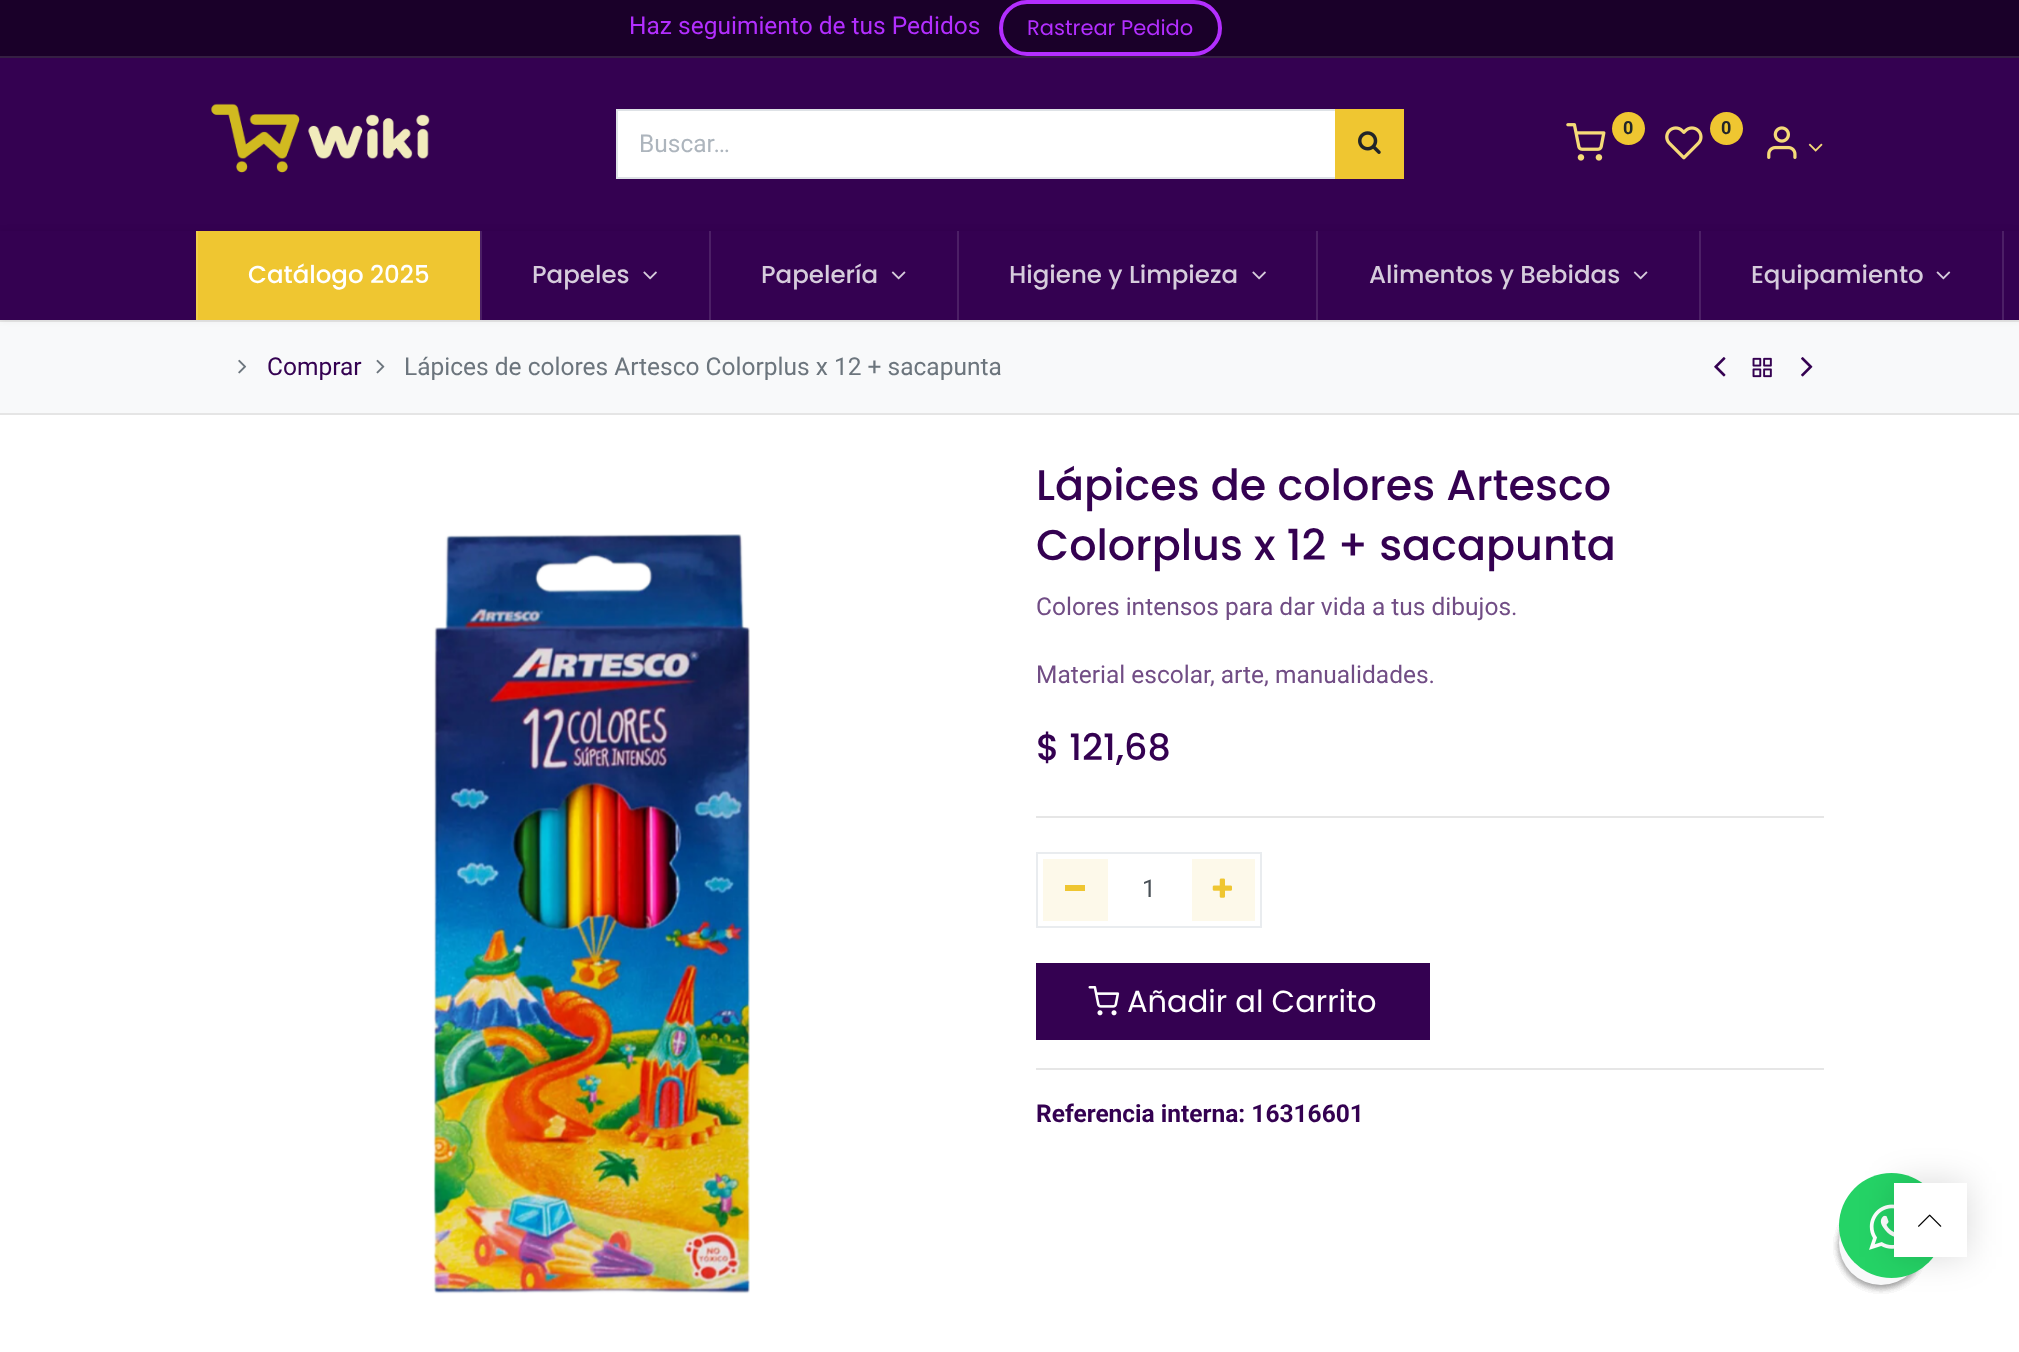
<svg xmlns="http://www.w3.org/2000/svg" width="2019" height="1352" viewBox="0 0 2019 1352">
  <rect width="100%" height="100%" fill="#fff"/>
  <path d="M0 0h2019v56H0z" fill="#1a0029"/>
  <path d="M0 56h2019v2H0z" fill="#351f43"/>
  <rect x="1001" y="2" width="219" height="52" rx="26" fill="none" stroke="#b32eff" stroke-width="4"/>
  <path d="M0 58h2019v173H0z" fill="#340151"/>
  <image x="211" y="103" width="219" height="70" href="img/1.png"/>
  <image x="1566" y="123" width="40" height="38" href="img/2.png"/>
  <circle cx="1628.5" cy="128.5" r="16.5" fill="#efc631"/>
  <image x="1665" y="126" width="38" height="34" href="img/3.png"/>
  <circle cx="1726.5" cy="128.5" r="16.5" fill="#efc631"/>
  <image x="1767" y="126" width="30" height="33" href="img/4.png"/>
  <image x="1808" y="143" width="15" height="9" href="img/5.png"/>
  <path d="M617 110h719v68H617z" fill="#fff" stroke="#dee2e6" stroke-width="2"/>
  <path d="M1335 109h69v70H1335z" fill="#efc631"/>
  <image x="1358" y="131" width="23" height="23" href="img/6.png"/>
  <path d="M0 322h2019v91H0z" fill="#f8f9fa"/>
  <path d="M0 320h2019v2H0z" fill="#e5e5e5"/>
  <path d="M0 231h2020v89H0z" fill="#00000012" filter="blur(3.5px)"/>
  <path d="M0 231h2019v89H0z" fill="#340151"/>
  <path d="M198 231h282v89H198z" fill="#efc631"/>
  <path d="M196 231h2v89H196z" fill="#f1cd4a"/>
  <path d="M480 231h2v89H480z" fill="#4c1f66"/>
  <image x="643" y="271" width="14" height="9" href="img/7.png"/>
  <path d="M709 231h2v89H709z" fill="#4c1f66"/>
  <image x="891" y="271" width="15" height="9" href="img/8.png"/>
  <path d="M957 231h2v89H957z" fill="#4c1f66"/>
  <image x="1252" y="271" width="14" height="9" href="img/7.png"/>
  <path d="M1316 231h2v89H1316z" fill="#4c1f66"/>
  <image x="1633" y="271" width="15" height="9" href="img/8.png"/>
  <path d="M1699 231h2v89H1699z" fill="#4c1f66"/>
  <image x="1936" y="271" width="15" height="9" href="img/9.png"/>
  <path d="M2002 231h2v89H2002z" fill="#4c1f66"/>
  <path d="M0 413h2019v2H0z" fill="#e5e5e5"/>
  <image x="238" y="359" width="9" height="15" href="img/10.png"/>
  <image x="376" y="359" width="9" height="15" href="img/11.png"/>
  <image x="1714" y="357" width="12" height="20" href="img/12.png"/>
  <image x="1752" y="357" width="20" height="21" href="img/13.png"/>
  <image x="1801" y="357" width="12" height="20" href="img/14.png"/>
  <image x="433" y="534" width="317" height="760" href="img/15.png"/>
  <path d="M1036 816h788v2H1036z" fill="#e6e6e6"/>
  <path d="M1037 853h224v74H1037z" fill="none" stroke="#e9ecef" stroke-width="2"/>
  <path d="M1043 859h65v62H1043z" fill="#fdf9ea"/>
  <path d="M1065 885h20v6H1065z" fill="#efc631"/>
  <path d="M1192 859h63v62H1192z" fill="#fdf9ea"/>
  <image x="1212" y="878" width="20" height="20" href="img/16.png"/>
  <path d="M1036 963h394v77H1036z" fill="#340151"/>
  <image x="1088" y="986" width="32" height="30" href="img/17.png"/>
  <path d="M1036 1068h788v2H1036z" fill="#e6e6e6"/>
  <rect x="1839" y="1204" width="84" height="84" rx="42" fill="#00000012" filter="blur(3.5px)"/>
  <rect x="1839" y="1204" width="84" height="84" rx="42" fill="#00000012" filter="blur(3.5px)"/>
  <rect x="1839" y="1204" width="84" height="84" rx="42" fill="#00000012" filter="blur(3.5px)"/>
  <rect x="1839" y="1204" width="84" height="84" rx="42" fill="#00000012" filter="blur(3.5px)"/>
  <rect x="1839" y="1204" width="84" height="84" rx="42" fill="#00000012" filter="blur(3.5px)"/>
  <rect x="1839" y="1204" width="84" height="84" rx="42" fill="#00000012" filter="blur(3.5px)"/>
  <rect x="1839" y="1204" width="84" height="84" rx="42" fill="#00000012" filter="blur(3.5px)"/>
  <circle cx="1881" cy="1243" r="42" fill="#f8f9fa"/>
  <circle cx="1891.5" cy="1225.5" r="52.5" fill="#25d366"/>
  <image x="1869" y="1204" width="25" height="46" href="img/19.png"/>
  <path d="M1894 1183h73v74H1894z" fill="#00000026" filter="blur(17.5px)"/>
  <path d="M1894 1183h73v74H1894z" fill="#fff"/>
  <image x="1918" y="1214" width="24" height="13" href="img/18.png"/>
  <text x="629" y="34" font-family="Roboto" font-size="24.5" fill="#b32eff">Haz seguimiento de tus Pedidos</text>
  <text x="1027" y="35" font-family="Poppins" font-size="21" fill="#b32eff">Rastrear Pedido</text>
  <g font-family="Roboto" font-size="18" font-weight="bold" fill="#212529">
    <text x="1623" y="134">0</text>
    <text x="1721" y="134">0</text>
  </g>
  <text x="639" y="152" font-family="Roboto" font-size="24.5" fill="#adb5bd">Buscar…</text>
  <text x="248" y="283" font-family="Poppins" font-size="24.5" font-weight="500" fill="#fff">Catálogo 2025</text>
  <g font-family="Poppins" font-size="24.5" font-weight="500" fill="#d6ccdc">
    <text x="532" y="283">Papeles</text>
    <text x="761" y="283">Papelería</text>
    <text x="1009" y="283">Higiene y Limpieza</text>
    <text x="1369" y="283">Alimentos y Bebidas</text>
    <text x="1751" y="283">Equipamiento</text>
  </g>
  <text x="267" y="375" font-family="Roboto" font-size="24.5" fill="#340151">Comprar</text>
  <text x="404" y="375" font-family="Roboto" font-size="24.5" fill="#6c757d">Lápices de colores Artesco Colorplus x 12 + sacapunta</text>
  <g font-family="Poppins" font-size="42.9" font-weight="500" fill="#340151">
    <text x="1036" y="500">Lápices de colores Artesco</text>
    <text x="1036" y="560">Colorplus x 12 + sacapunta</text>
  </g>
  <g font-family="Roboto" font-size="24.5" fill="#714d85">
    <text x="1036" y="615">Colores intensos para dar vida a tus dibujos.</text>
    <text x="1036" y="683">Material escolar, arte, manualidades.</text>
  </g>
  <text x="1036" y="760" font-family="Poppins" font-size="36.5" font-weight="500" fill="#340151">$ 121,68</text>
  <text x="1142" y="897" font-family="Roboto" font-size="24.5" fill="#495057">1</text>
  <text x="1127" y="1012" font-family="Poppins" font-size="30.5" fill="#fff">Añadir al Carrito</text>
  <text x="1036" y="1122" font-family="Roboto" font-size="24.5" font-weight="bold" fill="#340151">Referencia interna: 16316601</text>
</svg>
